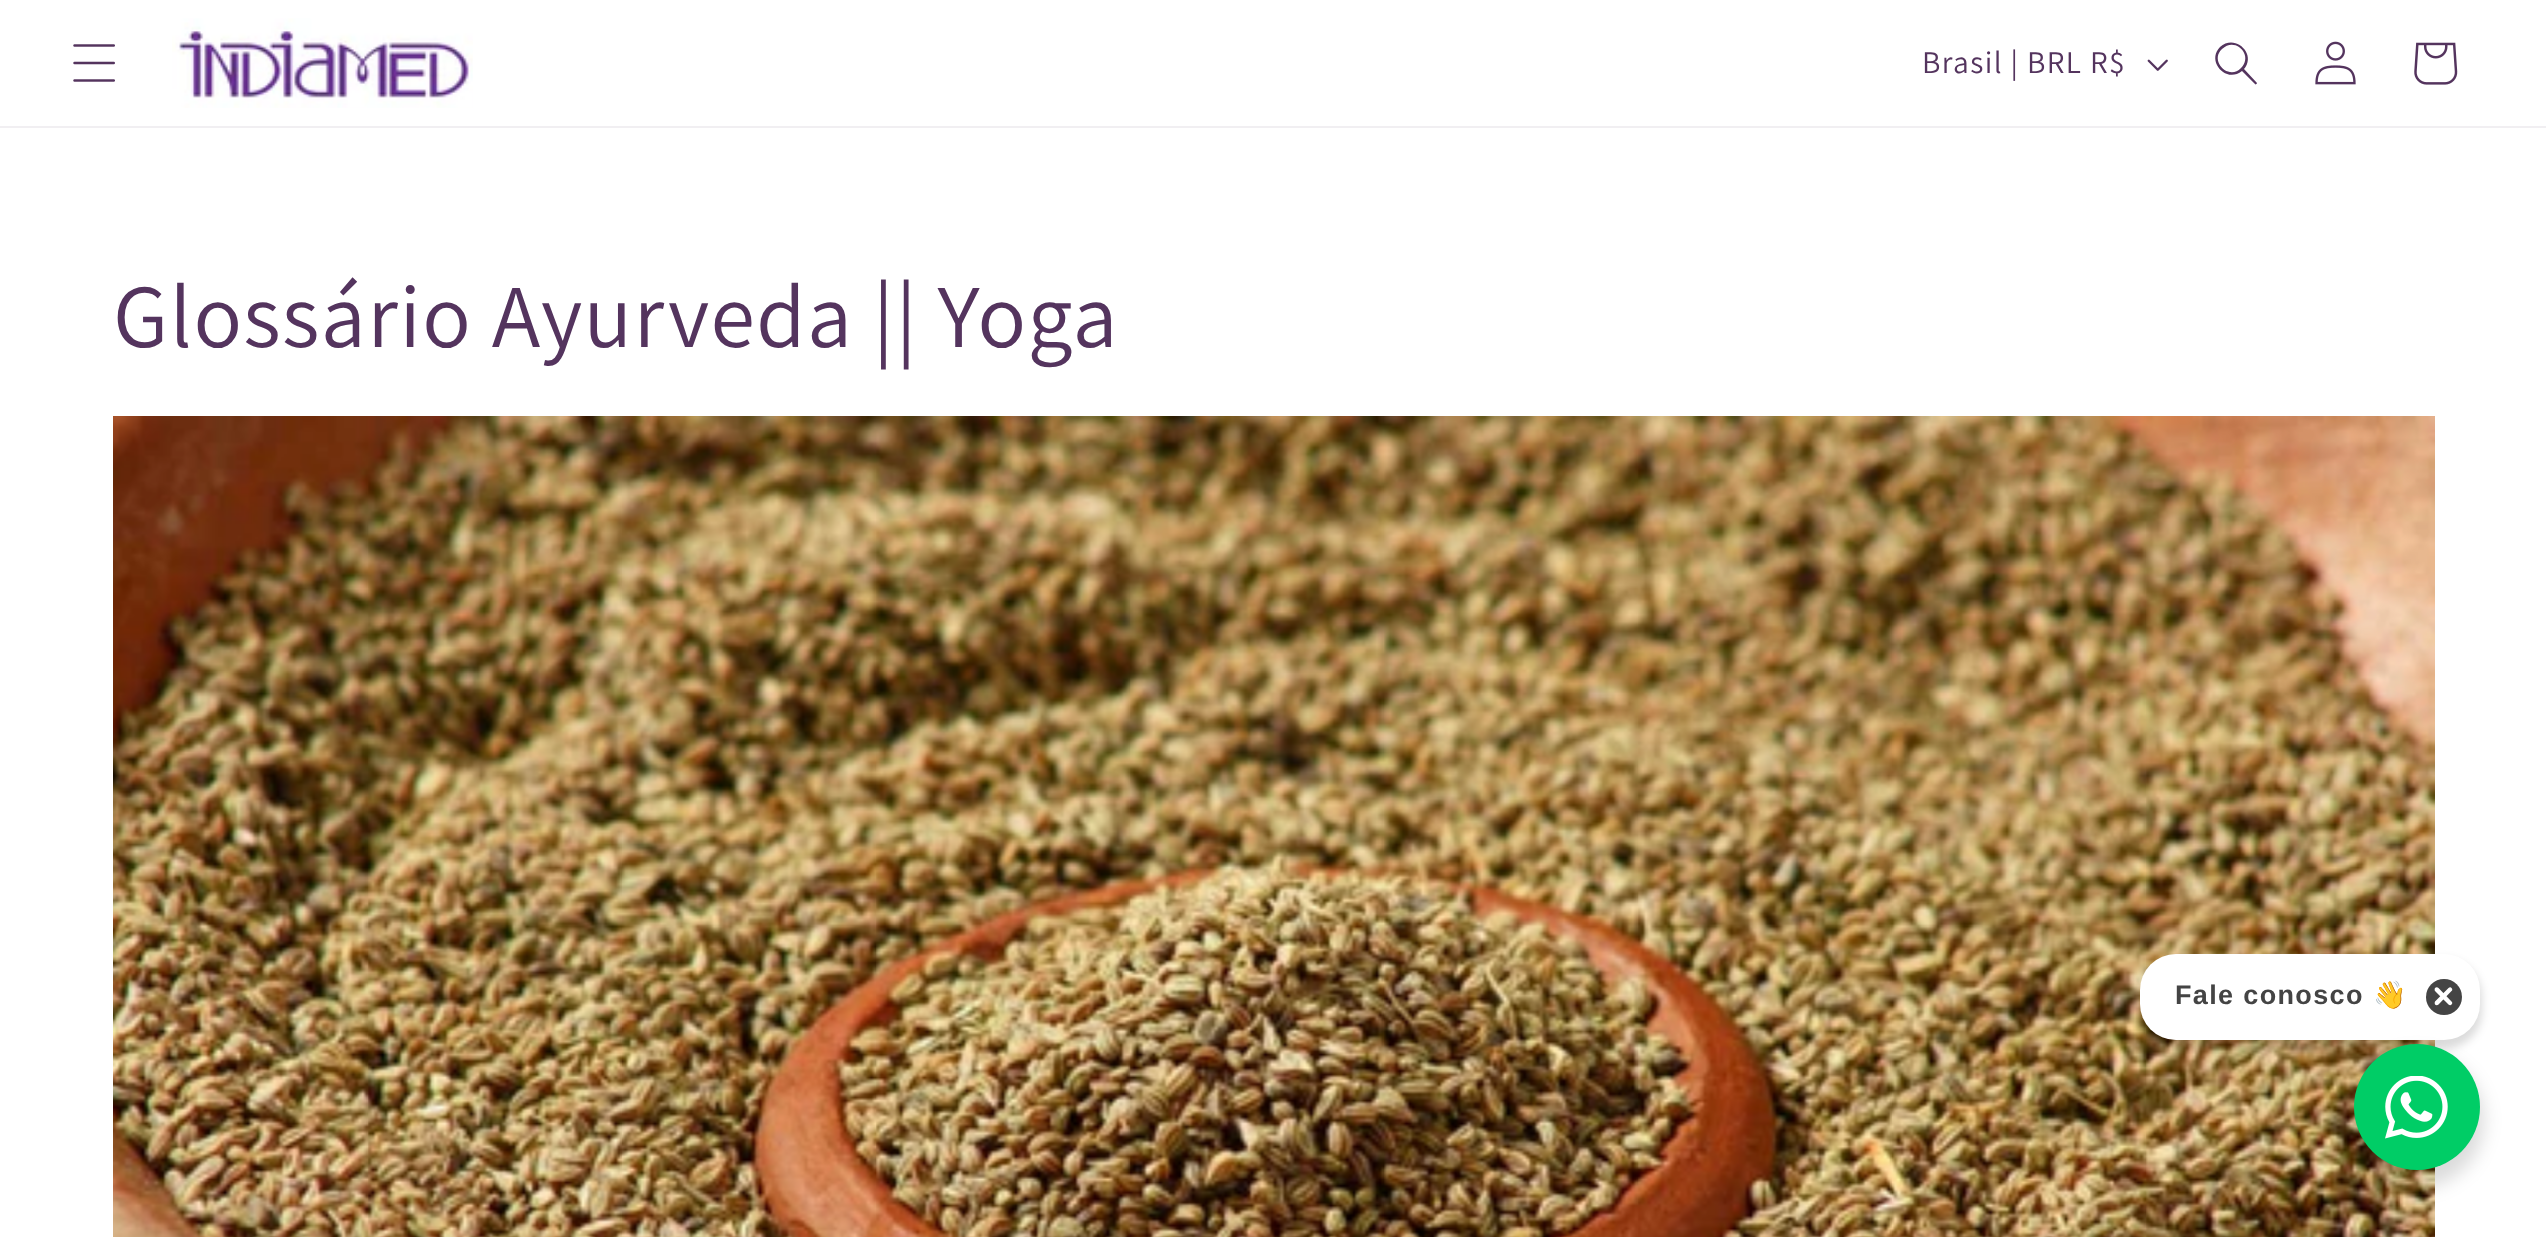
<svg xmlns="http://www.w3.org/2000/svg" width="2546" height="1237" viewBox="0 0 2546 1237">
  <rect width="100%" height="100%" fill="#fff"/>
  <path d="M0 126h2546v2H0z" fill="#f1eff2"/>
  <image x="73" y="44" width="42" height="38" href="img/1.png"/>
  <image x="172" y="18" width="301" height="90" href="img/2.png"/>
  <image x="2147" y="59" width="21" height="12" href="img/3.png"/>
  <path d="M2241 68C2229 81 2209 61 2222 49C2235 36 2254 55 2241 68M2242 71C2226 84 2206 61 2220 47C2235 33 2257 54 2244 69L2257 83C2257 84 2255 85 2255 84Z" fill="#54345e" fill-rule="evenodd"/>
  <image x="2315" y="41" width="41" height="44" href="img/4.png"/>
  <image x="2414" y="42" width="44" height="43" href="img/5.png"/>
  <image x="113" y="416" width="2322" height="821" href="img/6.png"/>
  <rect x="2138" y="959" width="344" height="90" rx="38" fill="#00000024" filter="blur(4.5px)"/>
  <rect x="2140" y="954" width="340" height="86" rx="36" fill="#fff"/>
  <circle cx="2444" cy="997" r="18" fill="#444"/>
  <path d="M2435 1001.5L2448.5 988C2449.5 987 2451 987 2451.5 988C2452.5 989 2452.5 990.5 2451.5 991L2438.5 1004.5C2437.5 1005.5 2436 1005.5 2435 1004.5C2434.5 1003.5 2434.5 1002.5 2435 1001.5Z" fill="#fff"/>
  <path d="M2438.5 988L2451.5 1001.5C2452.5 1002.5 2452.5 1003.5 2451.5 1004.5C2451 1005.5 2449.5 1005.5 2448.5 1004.5L2435 991C2434.5 990.5 2434.5 989 2435 988C2436 987 2437.5 987 2438.5 988Z" fill="#fff"/>
  <rect x="2349" y="1053" width="135" height="135" rx="67.5" fill="#00000024" filter="blur(9px)"/>
  <circle cx="2417" cy="1107" r="63" fill="#00cd66"/>
  <image x="2385" y="1076" width="63" height="63" href="img/7.png"/>
  <text x="1922" y="73" font-family="Assistant" font-size="31.5" letter-spacing="1.35" fill="#54345e">Brasil | BRL R$</text>
  <text x="113" y="347" font-family="Assistant" font-size="90" letter-spacing="1.35" fill="#54345e">Glossário Ayurveda || Yoga</text>
  <text x="2175" y="1004" font-family="Liberation Sans" font-size="27" font-weight="bold" letter-spacing="1.35" fill="#444">Fale conosco</text>
  <text x="2373" y="1004" font-family="Noto Color Emoji" font-size="27" font-weight="bold" letter-spacing="1.35" fill="#444">👋</text>
</svg>
